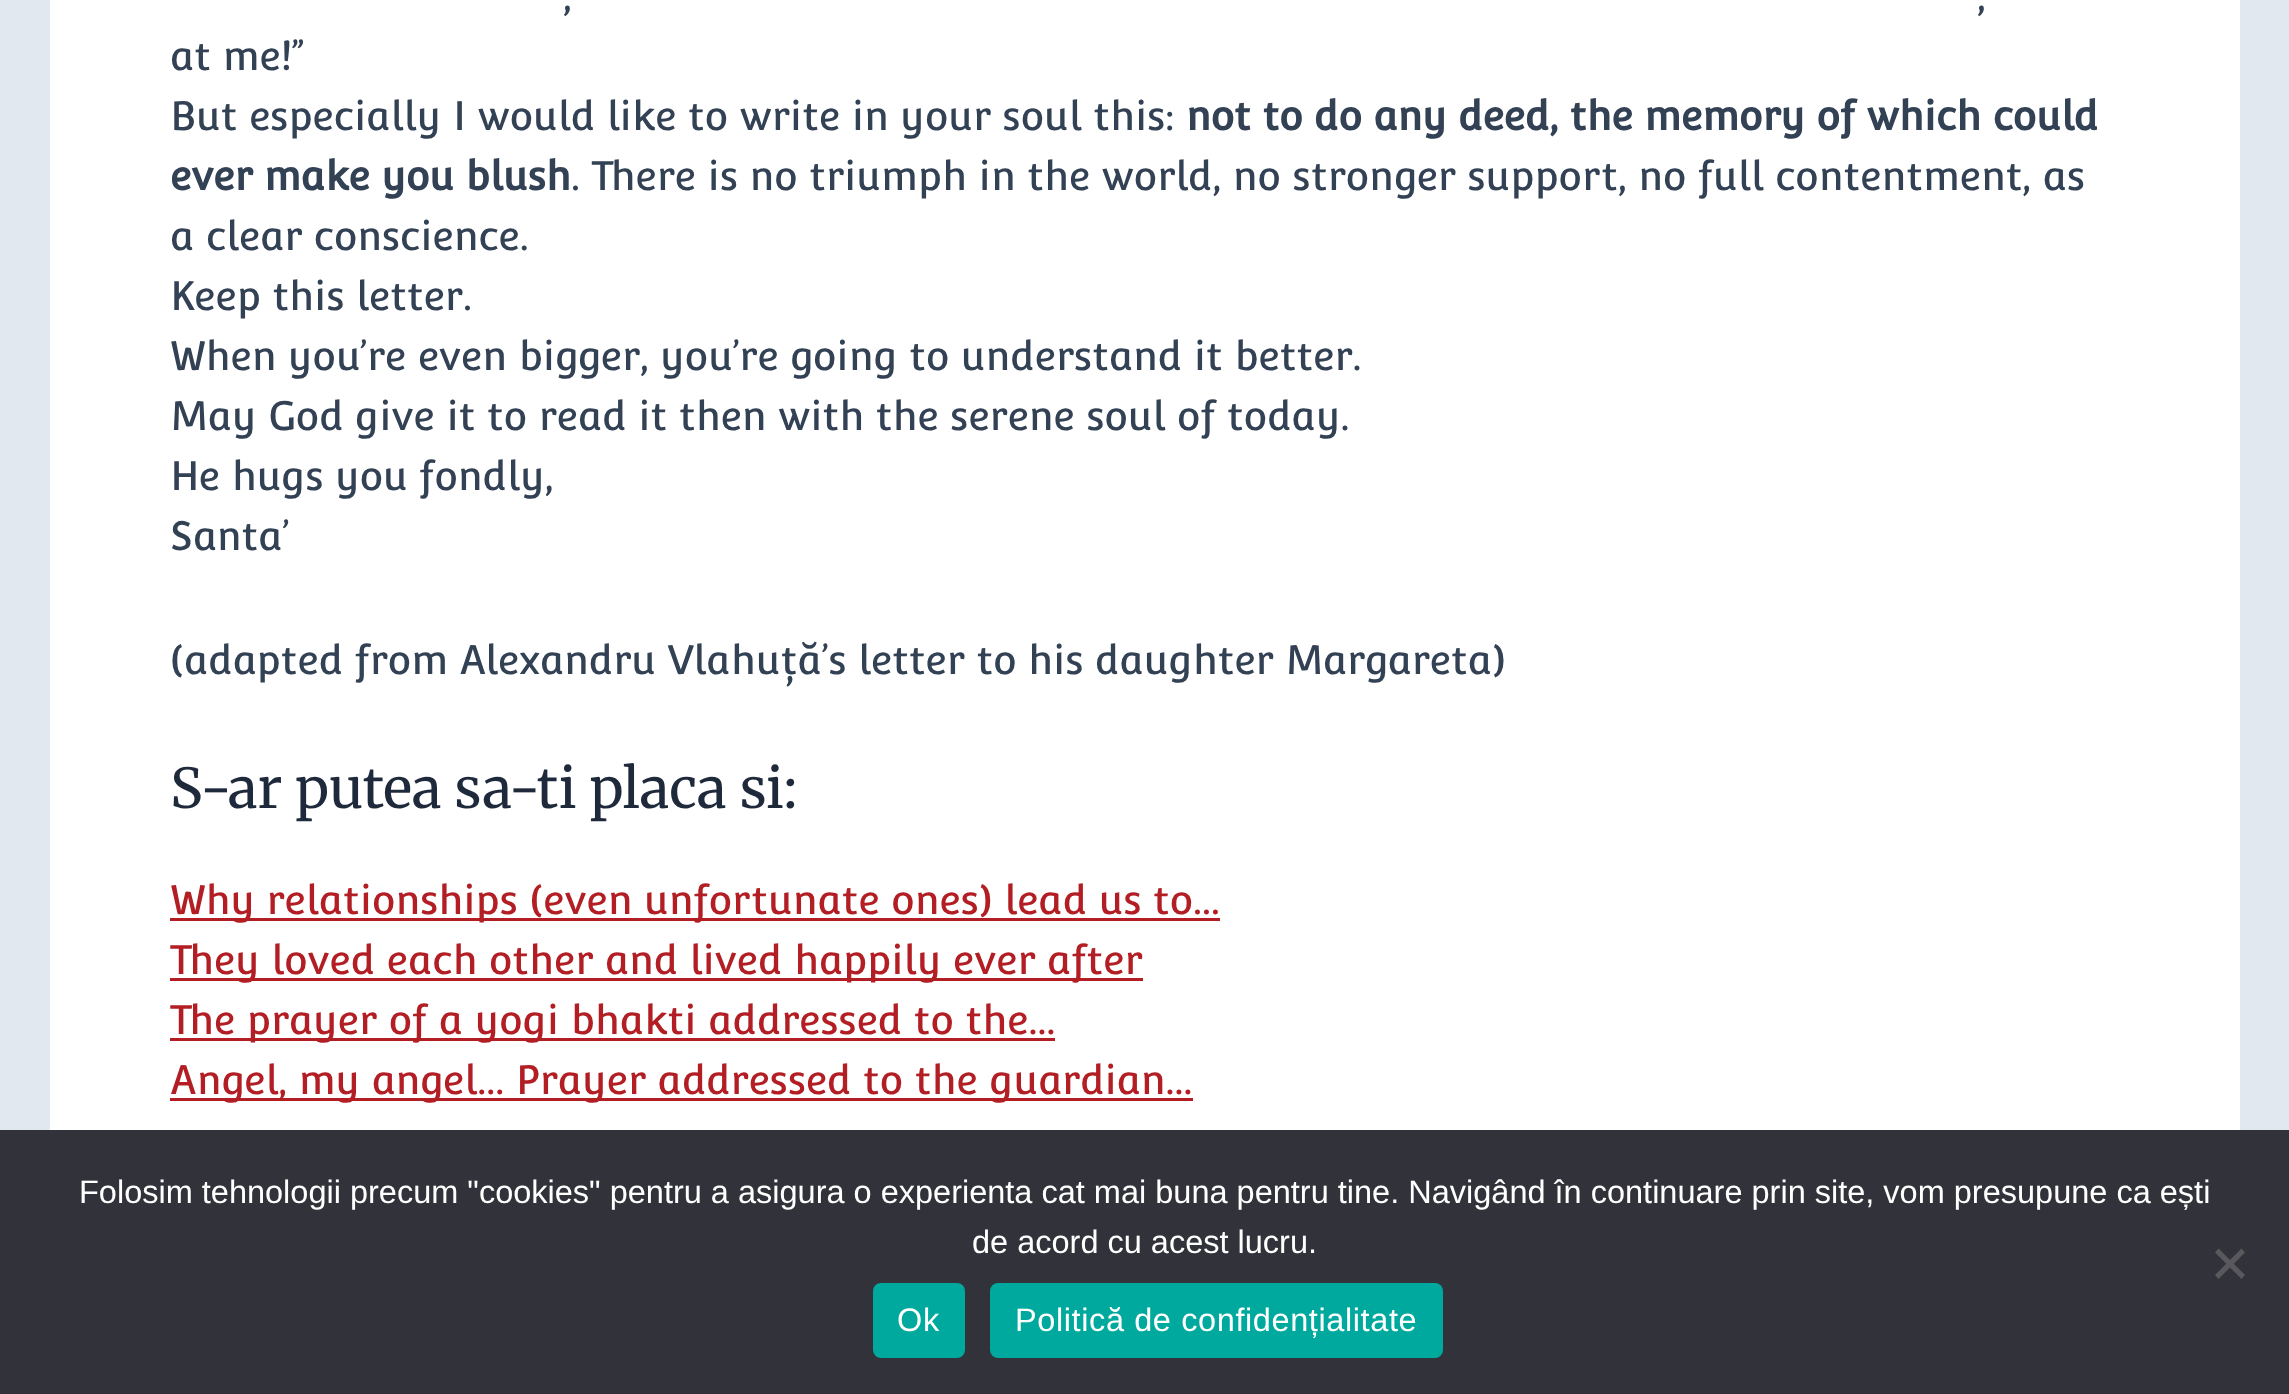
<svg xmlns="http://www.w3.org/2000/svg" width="2289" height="1394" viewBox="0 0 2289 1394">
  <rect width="100%" height="100%" fill="#e2e8f0"/>
  <path d="M50 0h2190v1130H50z" fill="#fff"/>
  <path d="M170 918h1050v3H170z" fill="#b21e23"/>
  <path d="M170 978h973v3H170z" fill="#b21e23"/>
  <path d="M170 1038h885v3H170z" fill="#b21e23"/>
  <path d="M170 1098h1023v3H170z" fill="#b21e23"/>
  <path d="M0 1130h2289v264H0z" fill="#32323a"/>
  <path d="M2241.5 1248.5L2245 1252.5L2218.5 1279L2215 1275Z" fill="#59595d"/>
  <path d="M2215 1252.5L2218.5 1248.5L2245 1275L2241.5 1279Z" fill="#59595d"/>
  <rect x="873" y="1283" width="92" height="75" rx="8" fill="#00a99d"/>
  <rect x="990" y="1283" width="453" height="75" rx="8" fill="#00a99d"/>
  <g font-family="Convergence" font-size="40" fill="#334155">
    <text x="563" y="10">,</text>
    <text x="1977" y="10">,</text>
    <text x="170" y="70">at me!”</text>
    <text x="170" y="130">But especially I would like to write in your soul this:</text>
  </g>
  <g font-family="Convergence" font-size="40" font-weight="bold" fill="#334155">
    <text x="1186" y="130">not to do any deed, the memory of which could</text>
    <text x="170" y="190">ever make you blush</text>
  </g>
  <g font-family="Convergence" font-size="40" fill="#334155">
    <text x="571" y="190">. There is no triumph in the world, no stronger support, no full contentment, as</text>
    <text x="170" y="250">a clear conscience.</text>
    <text x="170" y="310">Keep this letter.</text>
    <text x="170" y="370">When you’re even bigger, you’re going to understand it better.</text>
    <text x="170" y="430">May God give it to read it then with the serene soul of today.</text>
    <text x="170" y="490">He hugs you fondly,</text>
    <text x="170" y="550">Santa’</text>
    <text x="170" y="674">(adapted from Alexandru Vlahuță’s letter to his daughter Margareta)</text>
  </g>
  <text x="170" y="808" font-family="Merriweather" font-size="55" fill="#1e293b">S-ar putea sa-ti placa si:</text>
  <g font-family="Convergence" font-size="40" fill="#b21e23">
    <text x="170" y="914">Why relationships (even unfortunate ones) lead us to…</text>
    <text x="170" y="974">They loved each other and lived happily ever after</text>
    <text x="170" y="1034">The prayer of a yogi bhakti addressed to the…</text>
    <text x="170" y="1094">Angel, my angel... Prayer addressed to the guardian…</text>
  </g>
  <g font-family="Liberation Sans" font-size="32.5" fill="#fff">
    <text x="79" y="1203">Folosim tehnologii precum "cookies" pentru a asigura o experienta cat mai buna pentru tine. Navigând în continuare prin site, vom presupune ca ești</text>
    <text x="972" y="1253">de acord cu acest lucru.</text>
  </g>
  <g font-family="Liberation Sans" font-size="32.5" letter-spacing="0.6" fill="#fff">
    <text x="897" y="1331">Ok</text>
    <text x="1015" y="1331">Politică de confidențialitate</text>
  </g>
</svg>
